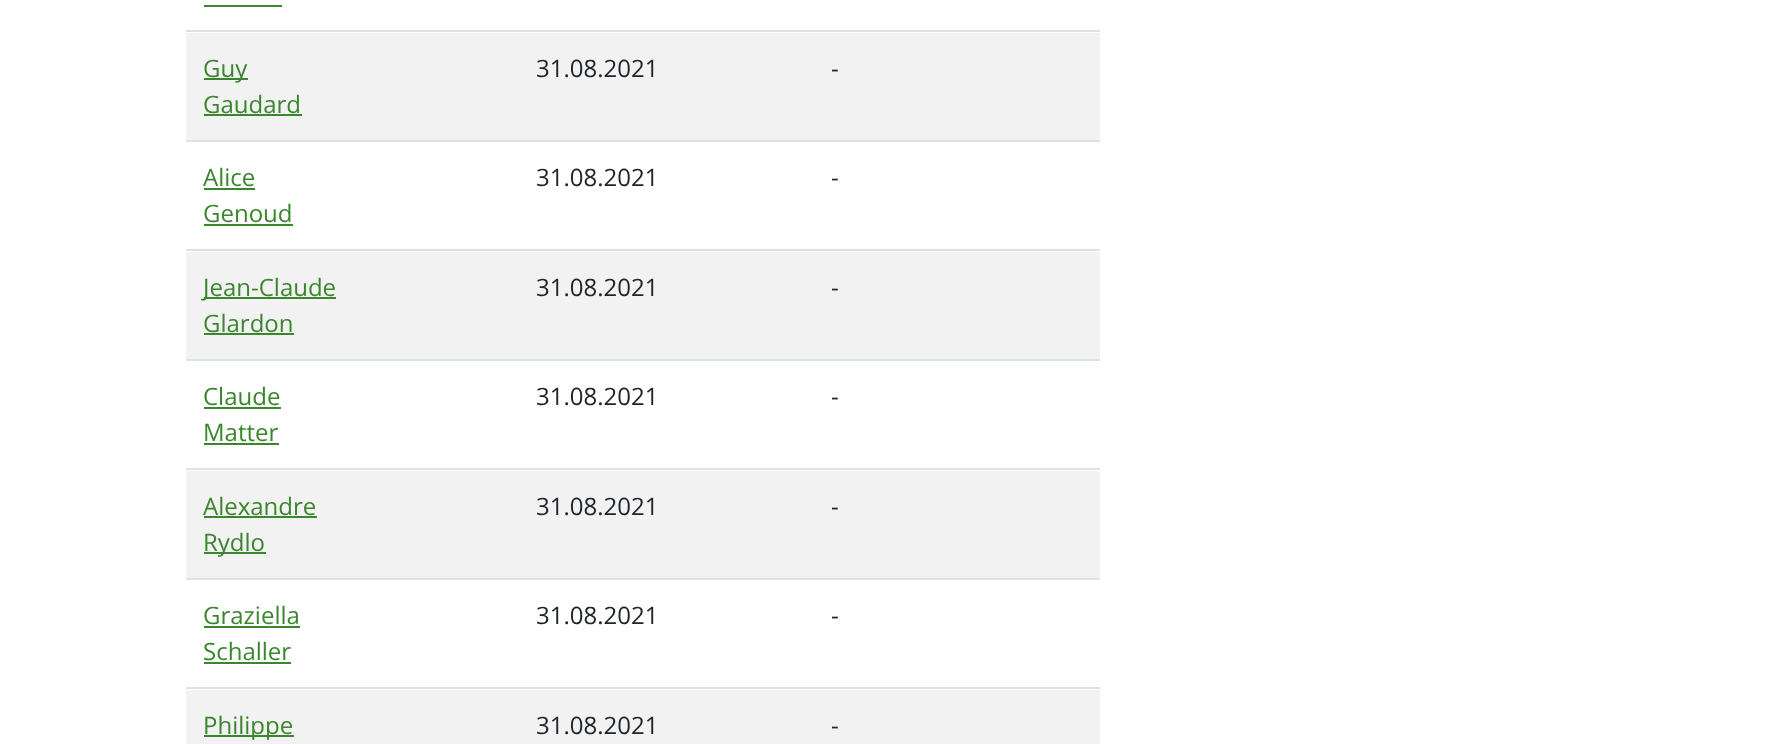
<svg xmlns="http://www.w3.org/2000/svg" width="1765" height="744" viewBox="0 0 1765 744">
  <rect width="100%" height="100%" fill="#fff"/>
  <path d="M204 5h78v2H204z" fill="#3a862d"/>
  <path d="M186 33h914v107H186z" fill="#f2f2f2"/>
  <path d="M204 78h44v2H204z" fill="#3a862d"/>
  <path d="M204 114h98v2H204z" fill="#3a862d"/>
  <path d="M186 30h914v2H186z" fill="#dce3e8"/>
  <path d="M204 188h51v2H204z" fill="#3a862d"/>
  <path d="M204 224h89v2H204z" fill="#3a862d"/>
  <path d="M186 140h914v2H186z" fill="#dce3e8"/>
  <path d="M186 252h914v107H186z" fill="#f2f2f2"/>
  <path d="M204 297h132v2H204z" fill="#3a862d"/>
  <path d="M204 333h90v2H204z" fill="#3a862d"/>
  <path d="M186 249h914v2H186z" fill="#dce3e8"/>
  <path d="M204 407h77v2H204z" fill="#3a862d"/>
  <path d="M204 443h75v2H204z" fill="#3a862d"/>
  <path d="M186 359h914v2H186z" fill="#dce3e8"/>
  <path d="M186 471h914v107H186z" fill="#f2f2f2"/>
  <path d="M204 516h113v2H204z" fill="#3a862d"/>
  <path d="M204 552h62v2H204z" fill="#3a862d"/>
  <path d="M186 468h914v2H186z" fill="#dce3e8"/>
  <path d="M204 626h96v2H204z" fill="#3a862d"/>
  <path d="M204 662h87v2H204z" fill="#3a862d"/>
  <path d="M186 578h914v2H186z" fill="#dce3e8"/>
  <path d="M186 690h914v54H186z" fill="#f2f2f2"/>
  <path d="M204 735h90v2H204z" fill="#3a862d"/>
  <path d="M186 687h914v2H186z" fill="#dce3e8"/>
  <g font-family="Open Sans" font-size="24" fill="#3a862d">
    <text x="203" y="77">Guy</text>
    <text x="203" y="113">Gaudard</text>
  </g>
  <g font-family="Open Sans" font-size="24" fill="#212529">
    <text x="536" y="77">31.08.2021</text>
    <text x="831" y="77">-</text>
  </g>
  <g font-family="Open Sans" font-size="24" fill="#3a862d">
    <text x="203" y="186">Alice</text>
    <text x="203" y="222">Genoud</text>
  </g>
  <g font-family="Open Sans" font-size="24" fill="#212529">
    <text x="536" y="186">31.08.2021</text>
    <text x="831" y="186">-</text>
  </g>
  <g font-family="Open Sans" font-size="24" fill="#3a862d">
    <text x="203" y="296">Jean-Claude</text>
    <text x="203" y="332">Glardon</text>
  </g>
  <g font-family="Open Sans" font-size="24" fill="#212529">
    <text x="536" y="296">31.08.2021</text>
    <text x="831" y="296">-</text>
  </g>
  <g font-family="Open Sans" font-size="24" fill="#3a862d">
    <text x="203" y="405">Claude</text>
    <text x="203" y="441">Matter</text>
  </g>
  <g font-family="Open Sans" font-size="24" fill="#212529">
    <text x="536" y="405">31.08.2021</text>
    <text x="831" y="405">-</text>
  </g>
  <g font-family="Open Sans" font-size="24" fill="#3a862d">
    <text x="203" y="515">Alexandre</text>
    <text x="203" y="551">Rydlo</text>
  </g>
  <g font-family="Open Sans" font-size="24" fill="#212529">
    <text x="536" y="515">31.08.2021</text>
    <text x="831" y="515">-</text>
  </g>
  <g font-family="Open Sans" font-size="24" fill="#3a862d">
    <text x="203" y="624">Graziella</text>
    <text x="203" y="660">Schaller</text>
  </g>
  <g font-family="Open Sans" font-size="24" fill="#212529">
    <text x="536" y="624">31.08.2021</text>
    <text x="831" y="624">-</text>
  </g>
  <text x="203" y="734" font-family="Open Sans" font-size="24" fill="#3a862d">Philippe</text>
  <g font-family="Open Sans" font-size="24" fill="#212529">
    <text x="536" y="734">31.08.2021</text>
    <text x="831" y="734">-</text>
  </g>
</svg>
